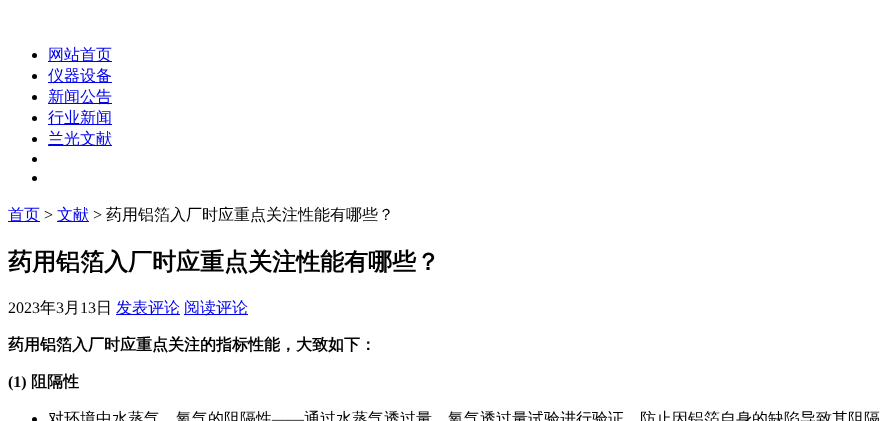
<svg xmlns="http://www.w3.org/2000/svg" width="889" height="421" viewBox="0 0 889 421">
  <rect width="100%" height="100%" fill="#fff"/>
  <circle cx="34.5" cy="55.5" r="2.5" fill="#000"/>
  <path d="M48 61h64v1H48z" fill="#00e"/>
  <circle cx="34.5" cy="76.5" r="2.5" fill="#000"/>
  <path d="M48 82h64v1H48z" fill="#00e"/>
  <circle cx="34.5" cy="97.5" r="2.5" fill="#000"/>
  <path d="M48 103h64v1H48z" fill="#00e"/>
  <circle cx="34.5" cy="118.5" r="2.5" fill="#000"/>
  <path d="M48 124h64v1H48z" fill="#00e"/>
  <circle cx="34.5" cy="139.5" r="2.5" fill="#000"/>
  <path d="M48 145h64v1H48z" fill="#00e"/>
  <circle cx="34.5" cy="159.5" r="2.5" fill="#000"/>
  <circle cx="34.5" cy="178.5" r="2.5" fill="#000"/>
  <path d="M8 221h32v1H8z" fill="#00e"/>
  <path d="M57 221h32v1H57z" fill="#00e"/>
  <path d="M116 314h64v1H116z" fill="#00e"/>
  <path d="M184 314h64v1H184z" fill="#00e"/>
  <circle cx="34.5" cy="419.5" r="2.5" fill="#000"/>
  <g font-family="WenQuanYi Zen Hei" font-size="16" font-weight="500" fill="#00e">
    <text x="48" y="60">网站首页</text>
    <text x="48" y="81">仪器设备</text>
    <text x="48" y="102">新闻公告</text>
    <text x="48" y="123">行业新闻</text>
    <text x="48" y="144">兰光文献</text>
    <text x="8" y="220">首页</text>
  </g>
  <text x="44" y="220" font-family="Liberation Serif" font-size="16" fill="#000">&gt;</text>
  <text x="57" y="220" font-family="WenQuanYi Zen Hei" font-size="16" font-weight="500" fill="#00e">文献</text>
  <text x="93" y="220" font-family="Liberation Serif" font-size="16" fill="#000">&gt;</text>
  <text x="106" y="220" font-family="WenQuanYi Zen Hei" font-size="16" font-weight="500" fill="#000">药用铝箔入厂时应重点关注性能有哪些？</text>
  <text x="8" y="270" font-family="WenQuanYi Zen Hei" font-size="24" font-weight="bold" fill="#000">药用铝箔入厂时应重点关注性能有哪些？</text>
  <text x="8" y="313" font-family="Liberation Serif" font-size="16" fill="#000">2023</text>
  <text x="40" y="313" font-family="WenQuanYi Zen Hei" font-size="16" font-weight="500" fill="#000">年</text>
  <text x="56" y="313" font-family="Liberation Serif" font-size="16" fill="#000">3</text>
  <text x="64" y="313" font-family="WenQuanYi Zen Hei" font-size="16" font-weight="500" fill="#000">月</text>
  <text x="80" y="313" font-family="Liberation Serif" font-size="16" fill="#000">13</text>
  <text x="96" y="313" font-family="WenQuanYi Zen Hei" font-size="16" font-weight="500" fill="#000">日</text>
  <g font-family="WenQuanYi Zen Hei" font-size="16" font-weight="500" fill="#00e">
    <text x="116" y="313">发表评论</text>
    <text x="184" y="313">阅读评论</text>
  </g>
  <text x="8" y="350" font-family="WenQuanYi Zen Hei" font-size="16" font-weight="bold" fill="#000">药用铝箔入厂时应重点关注的指标性能，大致如下：</text>
  <text x="8" y="387" font-family="Liberation Serif" font-size="16" font-weight="bold" fill="#000">(1)</text>
  <text x="31" y="387" font-family="WenQuanYi Zen Hei" font-size="16" font-weight="bold" fill="#000">阻隔性</text>
  <text x="48" y="424" font-family="WenQuanYi Zen Hei" font-size="16" font-weight="500" fill="#000">对环境中水蒸气、氧气的阻隔性</text>
  <text x="272" y="424" font-family="Liberation Serif" font-size="16" fill="#000">——</text>
  <text x="304" y="424" font-family="WenQuanYi Zen Hei" font-size="16" font-weight="500" fill="#000">通过水蒸气透过量、氧气透过量试验进行验证，防止因铝箔自身的缺陷导致其阻隔</text>
</svg>
